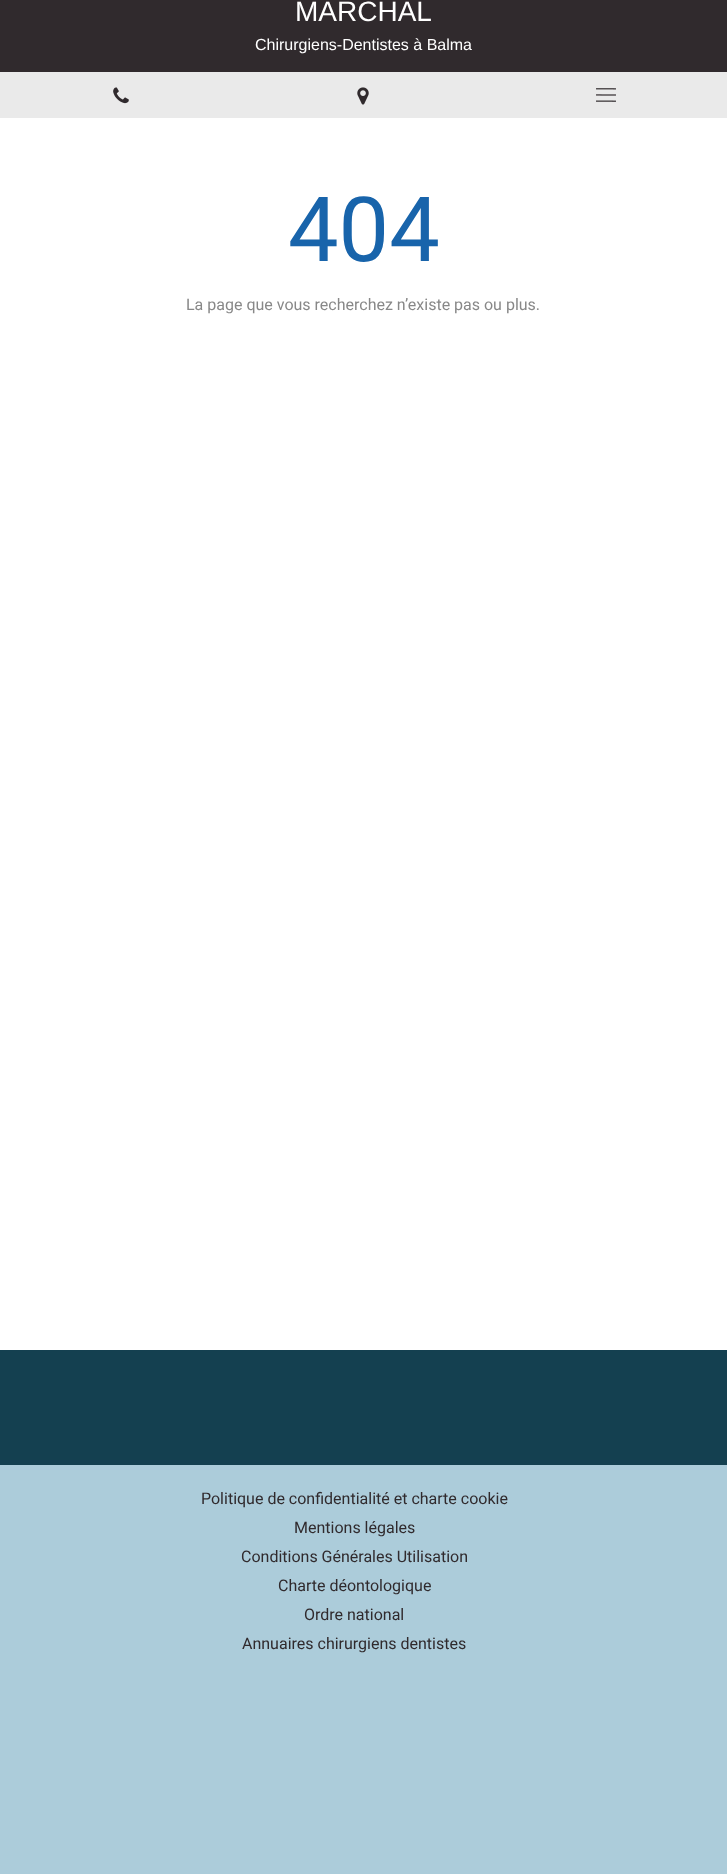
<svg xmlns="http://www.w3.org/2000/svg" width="727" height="1874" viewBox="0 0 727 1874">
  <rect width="100%" height="100%" fill="#fff"/>
  <path d="M0 0h727v72H0z" fill="#302a2d"/>
  <path d="M0 72h727v46H0z" fill="#eaeaea"/>
  <image x="113" y="87" width="16" height="17" href="img/1.png"/>
  <image x="357" y="87" width="12" height="18" href="img/2.png"/>
  <image x="596" y="88" width="20" height="14" href="img/3.png"/>
  <path d="M0 1350h727v115H0z" fill="#144050"/>
  <path d="M0 1465h727v409H0z" fill="#acccda"/>
  <text x="295" y="21" font-family="Liberation Sans" font-size="28" fill="#fff">MARCHAL</text>
  <text x="255" y="50" font-family="Liberation Sans" font-size="16" fill="#fff">Chirurgiens-Dentistes à Balma</text>
  <text x="288" y="261" font-family="Roboto" font-size="90" fill="#1864ab">404</text>
  <text x="186" y="310" font-family="Roboto" font-size="16" fill="#888">La page que vous recherchez n’existe pas ou plus.</text>
  <g font-family="Roboto" font-size="16" fill="#302a2d">
    <text x="201" y="1504">Politique de confidentialité et charte cookie</text>
    <text x="294" y="1533">Mentions légales</text>
    <text x="241" y="1562">Conditions Générales Utilisation</text>
    <text x="278" y="1591">Charte déontologique</text>
    <text x="304" y="1620">Ordre national</text>
    <text x="242" y="1649">Annuaires chirurgiens dentistes</text>
  </g>
</svg>
